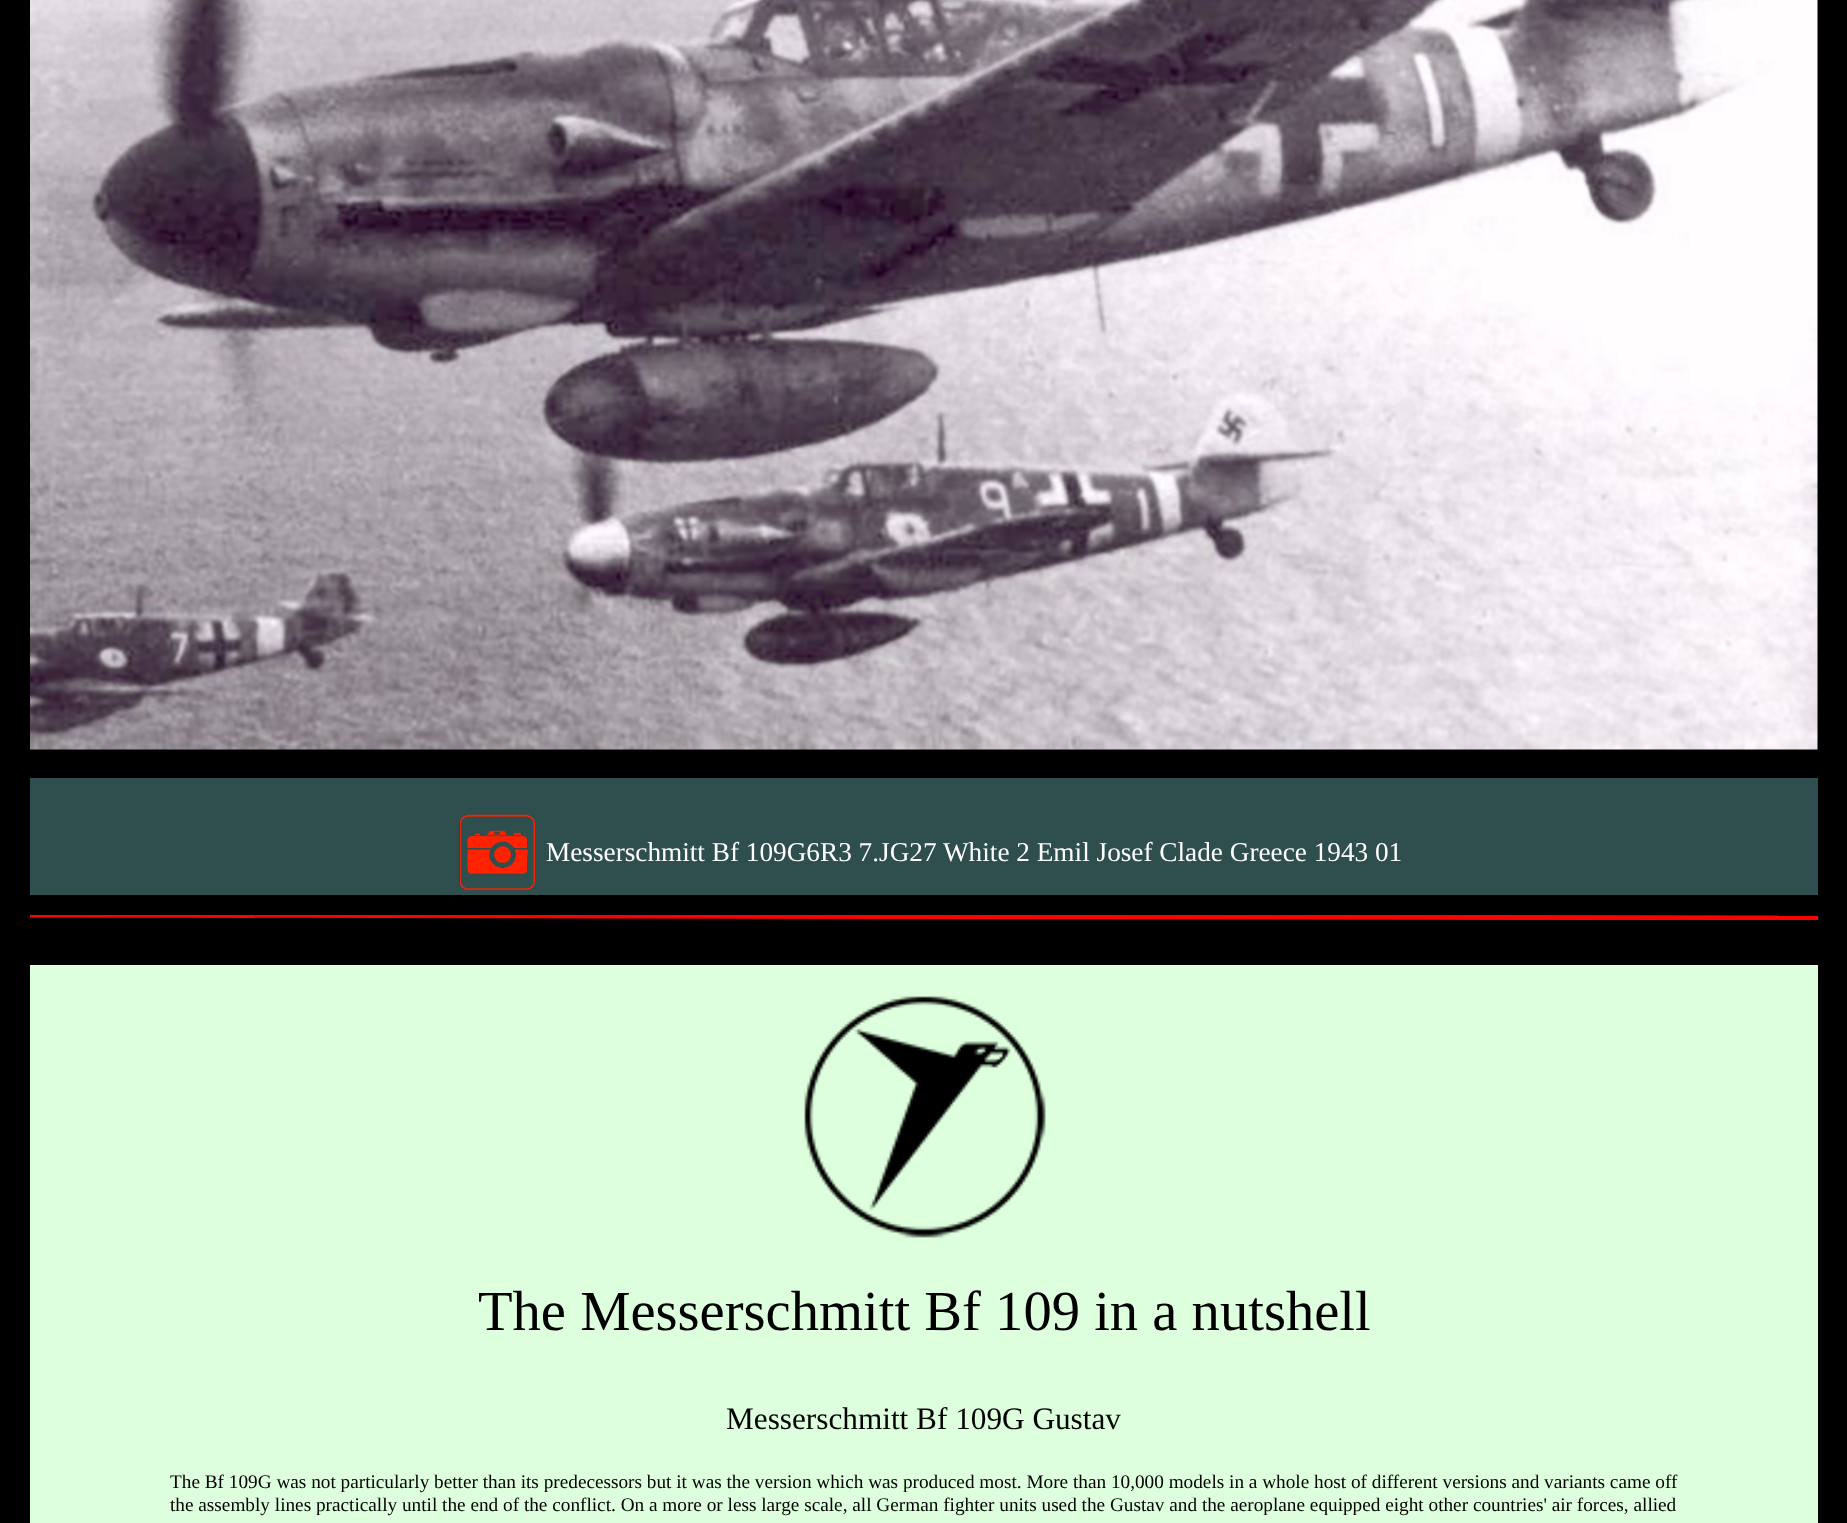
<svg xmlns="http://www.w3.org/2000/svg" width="1847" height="1523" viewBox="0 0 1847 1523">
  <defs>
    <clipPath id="clip1"><path d="M30 915h1788v5H30z"/></clipPath>
  </defs>
  <rect width="100%" height="100%" fill="#000"/>
  <image x="30" y="0" width="1788" height="750" href="img/1.png"/>
  <path d="M30 778h1788v117H30z" fill="#2f4f4f"/>
  <image x="459" y="814" width="77" height="77" href="img/2.png"/>
  <g clip-path="url(#clip1)">
    <path d="M30 915L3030 920" fill="none" stroke="#f00" stroke-width="5"/>
  </g>
  <path d="M30 965h1788v558H30z" fill="#dfd"/>
  <image x="804" y="996" width="242" height="242" href="img/3.png"/>
  <text x="546" y="861" font-family="Liberation Serif" font-size="27.25" fill="#fff">Messerschmitt Bf 109G6R3 7.JG27 White 2 Emil Josef Clade Greece 1943 01</text>
  <text x="478" y="1330" font-family="Liberation Serif" font-size="56.6" fill="#000">The Messerschmitt Bf 109 in a nutshell</text>
  <text x="726" y="1429" font-family="Liberation Serif" font-size="31.25" fill="#000">Messerschmitt Bf 109G Gustav</text>
  <g font-family="Liberation Serif" font-size="19.25" fill="#000">
    <text x="170" y="1488">The Bf 109G was not particularly better than its predecessors but it was the version which was produced most. More than 10,000 models in a whole host of different versions and variants came off</text>
    <text x="170" y="1511">the assembly lines practically until the end of the conflict. On a more or less large scale, all German fighter units used the Gustav and the aeroplane equipped eight other countries' air forces, allied</text>
  </g>
</svg>
